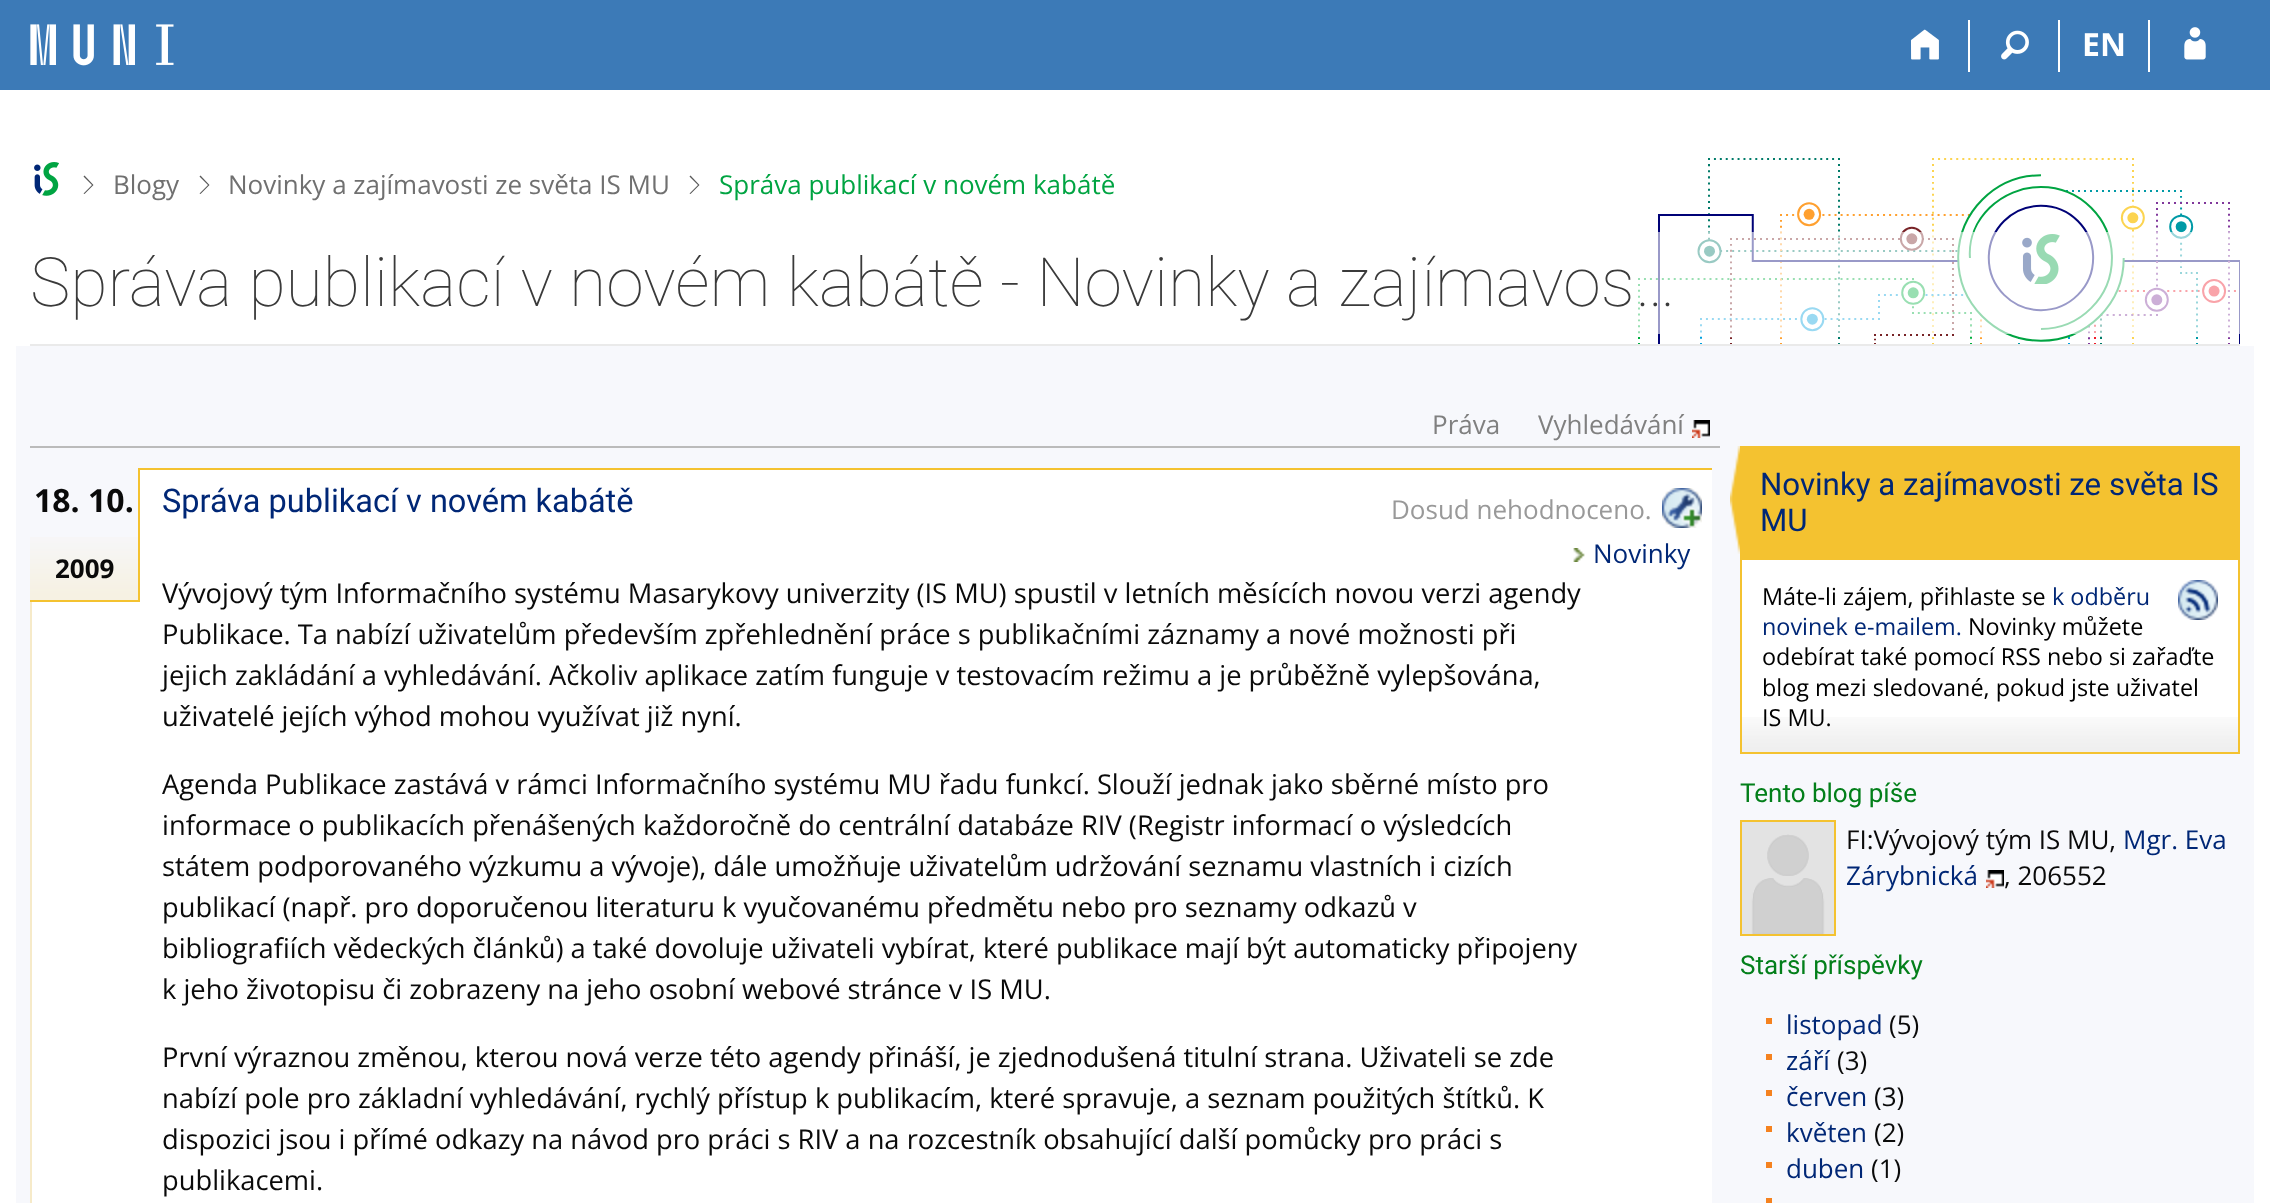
<svg xmlns="http://www.w3.org/2000/svg" width="2270" height="1203" viewBox="0 0 2270 1203">
  <rect width="100%" height="100%" fill="#fff"/>
  <path d="M0 0h2270v90H0z" fill="#3c7ab7"/>
  <image x="30" y="24" width="144" height="42" href="img/1.png"/>
  <path d="M1968 20h2v52H1968z" fill="#fff"/>
  <image x="1911" y="29" width="28" height="31" href="img/2.png"/>
  <path d="M2058 20h2v52H2058z" fill="#fff"/>
  <image x="2001" y="30" width="28" height="30" href="img/3.png"/>
  <path d="M2148 20h2v52H2148z" fill="#fff"/>
  <image x="2184" y="27" width="22" height="33" href="img/4.png"/>
  <image x="34" y="162" width="25" height="34" href="img/5.png"/>
  <path d="M84.5 194L83.5 193.5L92 185L83.5 176.5L84.5 175.5L93.5 185Z" fill="#5a5a5a"/>
  <path d="M200.5 194L199.5 193.5L208 185L199.5 176.5L200.5 175.5L209.5 185Z" fill="#5a5a5a"/>
  <path d="M690.5 194L689.5 193.5L698 185L689.5 176.5L690.5 175.5L699.5 185Z" fill="#5a5a5a"/>
  <image x="1638" y="158" width="602" height="186" href="img/6.png"/>
  <image x="2022" y="234" width="38" height="50" href="img/7.png"/>
  <path d="M1638 232h602v102H1638z" fill="#ffffff99"/>
  <path d="M30 344h2210v2H30z" fill="#eaeaea"/>
  <path d="M16 346h2238v857H16z" fill="#f7f8fc"/>
  <image x="1730" y="446" width="10" height="108" href="img/8.png"/>
  <path d="M30 446h1690v2H30z" fill="#bbb"/>
  <image x="1692" y="420" width="18" height="18" href="img/9.png"/>
  <path d="M32 470h1680v733H32z" fill="#fff"/>
  <path d="M30 602h2v601H30z" fill="#f6eac9"/>
  <path d="M32 470h106v67H32z" fill="#f7f8fc"/>
  <image x="30" y="537" width="108" height="63" href="img/10.png"/>
  <path d="M138 468h2v134H138z" fill="#f4c230"/>
  <path d="M30 600h110v2H30z" fill="#f4c230"/>
  <path d="M140 468h1572v2H140z" fill="#f4c230"/>
  <image x="1662" y="488" width="40" height="40" href="img/11.png"/>
  <image x="1573" y="548" width="12" height="14" href="img/12.png"/>
  <path d="M1740 446h500v112H1740z" fill="#f4c230"/>
  <path d="M1742 560h496v157H1742z" fill="#fff"/>
  <image x="1742" y="717" width="496" height="35" href="img/13.png"/>
  <path d="M1741 559h498v194H1741z" fill="none" stroke="#f4c230" stroke-width="2"/>
  <image x="2178" y="580" width="40" height="40" href="img/14.png"/>
  <path d="M1741 821h94v114H1741z" fill="none" stroke="#f4c230" stroke-width="2"/>
  <image x="1742" y="822" width="92" height="112" href="img/15.png"/>
  <image x="1986" y="870" width="18" height="18" href="img/9.png"/>
  <path d="M1766 1018h6v6H1766z" fill="#f5821f"/>
  <path d="M1766 1054h6v6H1766z" fill="#f5821f"/>
  <path d="M1766 1090h6v6H1766z" fill="#f5821f"/>
  <path d="M1766 1126h6v6H1766z" fill="#f5821f"/>
  <path d="M1766 1162h6v6H1766z" fill="#f5821f"/>
  <path d="M1766 1198h6v5H1766z" fill="#f5821f"/>
  <text x="2082" y="56" font-family="Open Sans" font-size="32" font-weight="bold" fill="#fff">EN</text>
  <g font-family="Open Sans" font-size="26" fill="#707070">
    <text x="113" y="194">Blogy</text>
    <text x="228" y="194">Novinky a zajímavosti ze světa IS MU</text>
  </g>
  <text x="719" y="194" font-family="Open Sans" font-size="26" fill="#00a442">Správa publikací v novém kabátě</text>
  <text x="30" y="306" font-family="Roboto" font-size="68" font-weight="100" fill="#3a3a3a">Správa publikací v novém kabátě - Novinky a zajímavos…</text>
  <g font-family="Open Sans" font-size="26" fill="#808080">
    <text x="1432" y="434">Práva</text>
    <text x="1538" y="434">Vyhledávání</text>
  </g>
  <text x="34" y="512" font-family="Open Sans" font-size="32" font-weight="bold" fill="#0a0a0a">18. 10.</text>
  <text x="55" y="578" font-family="Open Sans" font-size="26" font-weight="bold" fill="#0a0a0a">2009</text>
  <text x="162" y="512" font-family="Roboto" font-size="32.5" fill="#002776">Správa publikací v novém kabátě</text>
  <text x="1391" y="519" font-family="Open Sans" font-size="26" fill="#999">Dosud nehodnoceno.</text>
  <text x="1593" y="563" font-family="Open Sans" font-size="26" fill="#002776">Novinky</text>
  <g font-family="Open Sans" font-size="27.3" fill="#0a0a0a">
    <text x="162" y="603">Vývojový tým Informačního systému Masarykovy univerzity (IS MU) spustil v letních měsících novou verzi agendy</text>
    <text x="162" y="644">Publikace. Ta nabízí uživatelům především zpřehlednění práce s publikačními záznamy a nové možnosti při</text>
    <text x="162" y="685">jejich zakládání a vyhledávání. Ačkoliv aplikace zatím funguje v testovacím režimu a je průběžně vylepšována,</text>
    <text x="162" y="726">uživatelé jejích výhod mohou využívat již nyní.</text>
    <text x="162" y="794">Agenda Publikace zastává v rámci Informačního systému MU řadu funkcí. Slouží jednak jako sběrné místo pro</text>
    <text x="162" y="835">informace o publikacích přenášených každoročně do centrální databáze RIV (Registr informací o výsledcích</text>
    <text x="162" y="876">státem podporovaného výzkumu a vývoje), dále umožňuje uživatelům udržování seznamu vlastních i cizích</text>
    <text x="162" y="917">publikací (např. pro doporučenou literaturu k vyučovanému předmětu nebo pro seznamy odkazů v</text>
    <text x="162" y="958">bibliografiích vědeckých článků) a také dovoluje uživateli vybírat, které publikace mají být automaticky připojeny</text>
    <text x="162" y="999">k jeho životopisu či zobrazeny na jeho osobní webové stránce v IS MU.</text>
    <text x="162" y="1067">První výraznou změnou, kterou nová verze této agendy přináší, je zjednodušená titulní strana. Uživateli se zde</text>
    <text x="162" y="1108">nabízí pole pro základní vyhledávání, rychlý přístup k publikacím, které spravuje, a seznam použitých štítků. K</text>
    <text x="162" y="1149">dispozici jsou i přímé odkazy na návod pro práci s RIV a na rozcestník obsahující další pomůcky pro práci s</text>
    <text x="162" y="1190">publikacemi.</text>
  </g>
  <g font-family="Roboto" font-size="31.25" fill="#002776">
    <text x="1760" y="495">Novinky a zajímavosti ze světa IS</text>
    <text x="1760" y="531">MU</text>
  </g>
  <text x="1762" y="605" font-family="Open Sans" font-size="23.4" fill="#000">Máte-li zájem, přihlaste se</text>
  <g font-family="Open Sans" font-size="23.4" fill="#002776">
    <text x="2052" y="605">k odběru</text>
    <text x="1762" y="635">novinek e-mailem.</text>
  </g>
  <g font-family="Open Sans" font-size="23.4" fill="#000">
    <text x="1968" y="635">Novinky můžete</text>
    <text x="1762" y="665">odebírat také pomocí RSS nebo si zařaďte</text>
    <text x="1762" y="696">blog mezi sledované, pokud jste uživatel</text>
    <text x="1762" y="726">IS MU.</text>
  </g>
  <text x="1740" y="802" font-family="Roboto" font-size="26" fill="#037f1a">Tento blog píše</text>
  <text x="1846" y="849" font-family="Open Sans" font-size="26" fill="#0a0a0a">FI:Vývojový tým IS MU,</text>
  <g font-family="Open Sans" font-size="26" fill="#002776">
    <text x="2123" y="849">Mgr. Eva</text>
    <text x="1846" y="885">Zárybnická</text>
  </g>
  <text x="2004" y="885" font-family="Open Sans" font-size="26" fill="#0a0a0a">, 206552</text>
  <text x="1740" y="974" font-family="Roboto" font-size="26" fill="#037f1a">Starší příspěvky</text>
  <text x="1786" y="1034" font-family="Open Sans" font-size="26" fill="#002776">listopad</text>
  <text x="1889" y="1034" font-family="Open Sans" font-size="26" fill="#0a0a0a">(5)</text>
  <text x="1786" y="1070" font-family="Open Sans" font-size="26" fill="#002776">září</text>
  <text x="1837" y="1070" font-family="Open Sans" font-size="26" fill="#0a0a0a">(3)</text>
  <text x="1786" y="1106" font-family="Open Sans" font-size="26" fill="#002776">červen</text>
  <text x="1874" y="1106" font-family="Open Sans" font-size="26" fill="#0a0a0a">(3)</text>
  <text x="1786" y="1142" font-family="Open Sans" font-size="26" fill="#002776">květen</text>
  <text x="1874" y="1142" font-family="Open Sans" font-size="26" fill="#0a0a0a">(2)</text>
  <text x="1786" y="1178" font-family="Open Sans" font-size="26" fill="#002776">duben</text>
  <text x="1871" y="1178" font-family="Open Sans" font-size="26" fill="#0a0a0a">(1)</text>
</svg>
